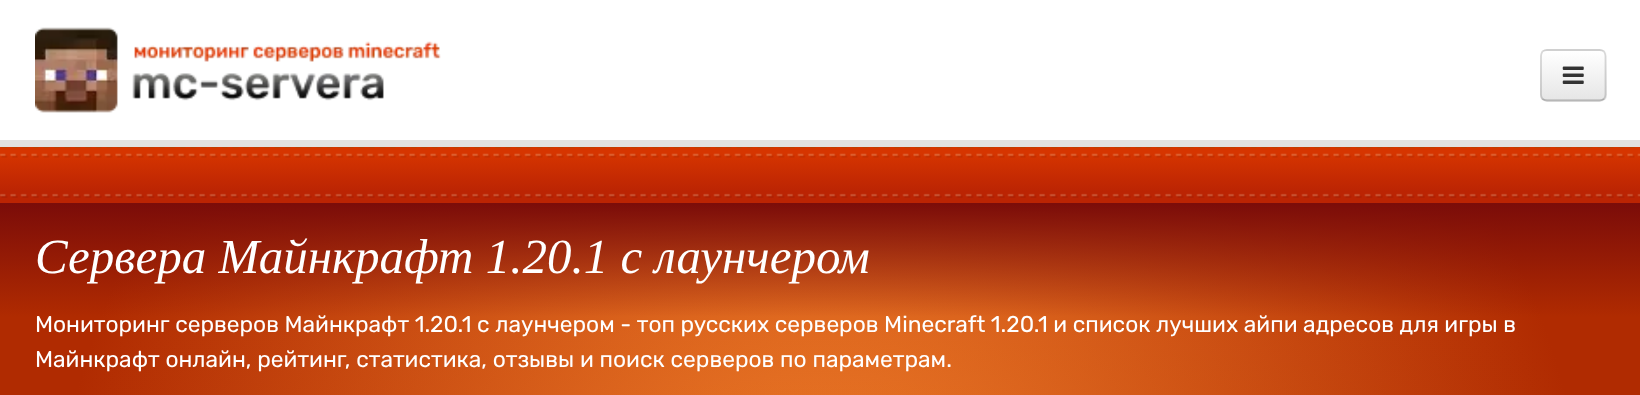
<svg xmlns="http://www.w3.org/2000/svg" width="1640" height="395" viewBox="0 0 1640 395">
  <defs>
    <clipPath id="clip1"><rect x="1540" y="49" width="67" height="53" rx="7"/></clipPath>
    <linearGradient id="g1" gradientUnits="userSpaceOnUse" x1="1573" y1="51" x2="1573" y2="100"><stop offset="0" stop-color="#fff"/><stop offset="1" stop-color="#e6e6e6"/></linearGradient>
    <linearGradient id="g2" gradientUnits="userSpaceOnUse" x1="821" y1="147" x2="821" y2="203"><stop offset="0" stop-color="#d63500"/><stop offset="0.1" stop-color="#d63500"/><stop offset="0.8" stop-color="#bb2403"/><stop offset="1" stop-color="#bb2403"/></linearGradient>
    <radialGradient id="g3" gradientUnits="userSpaceOnUse" cx="821" cy="583" r="904"><stop offset="0.2" stop-color="#e77324"/><stop offset="0.85" stop-color="#b02b01"/></radialGradient>
    <linearGradient id="g4" gradientUnits="userSpaceOnUse" x1="821" y1="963" x2="821" y2="203"><stop offset="0" stop-color="#9d280f" stop-opacity="0.5"/><stop offset="0.08" stop-color="#b02b01" stop-opacity="0.4"/><stop offset="0.85" stop-color="#b02b01" stop-opacity="0"/><stop offset="0.85" stop-color="#7b0c09" stop-opacity="0"/><stop offset="1" stop-color="#7b0c09"/></linearGradient>
  </defs>
  <rect width="100%" height="100%" fill="#fff"/>
  <path d="M0 140h1640v7H0z" fill="#e2e2e2"/>
  <image x="35" y="27" width="406" height="86" href="img/1.png"/>
  <rect x="1540" y="49" width="67" height="53" rx="7" fill="#f5f5f5"/>
  <g clip-path="url(#clip1)">
    <path d="M1540 51h67v49H1540z" fill="url(#g1)"/>
  </g>
  <path d="M1604 99C1602.5 100 1601 100.5 1599.5 100.5H1547C1545.5 100.5 1544 100 1542.5 99" fill="none" stroke="#00000040" stroke-width="1.8"/>
  <path d="M1542.5 99C1541.5 97.5 1541 96 1541 94.5V56C1541 54.5 1541.5 53 1542.5 51.5C1544 50.5 1545.5 50 1547 50H1599.5C1601 50 1602.5 50.5 1604 51.5C1605 53 1605.5 54.5 1605.5 56V94.5C1605.5 96 1605 97.5 1604 99" fill="none" stroke="#00000026" stroke-width="1.8"/>
  <image x="1562" y="66" width="22" height="18" href="img/2.png"/>
  <path d="M0 147h1640v56H0z" fill="url(#g2)"/>
  <image x="0" y="147" width="1640" height="51" href="img/3.png"/>
  <path d="M0 204h1640v191H0z" fill="url(#g3)"/>
  <path d="M0 203h1640v192H0z" fill="url(#g4)"/>
  <text x="35" y="273" font-family="Liberation Serif" font-size="49" font-style="italic" fill="#fff">Сервера Майнкрафт 1.20.1 с лаунчером</text>
  <g font-family="Rubik" font-size="22.75" fill="#fff">
    <text x="35" y="332">Мониторинг серверов Майнкрафт 1.20.1 с лаунчером - топ русских серверов Minecraft 1.20.1 и список лучших айпи адресов для игры в</text>
    <text x="35" y="367" word-spacing="0.25">Майнкрафт онлайн, рейтинг, статистика, отзывы и поиск серверов по параметрам.</text>
  </g>
</svg>
